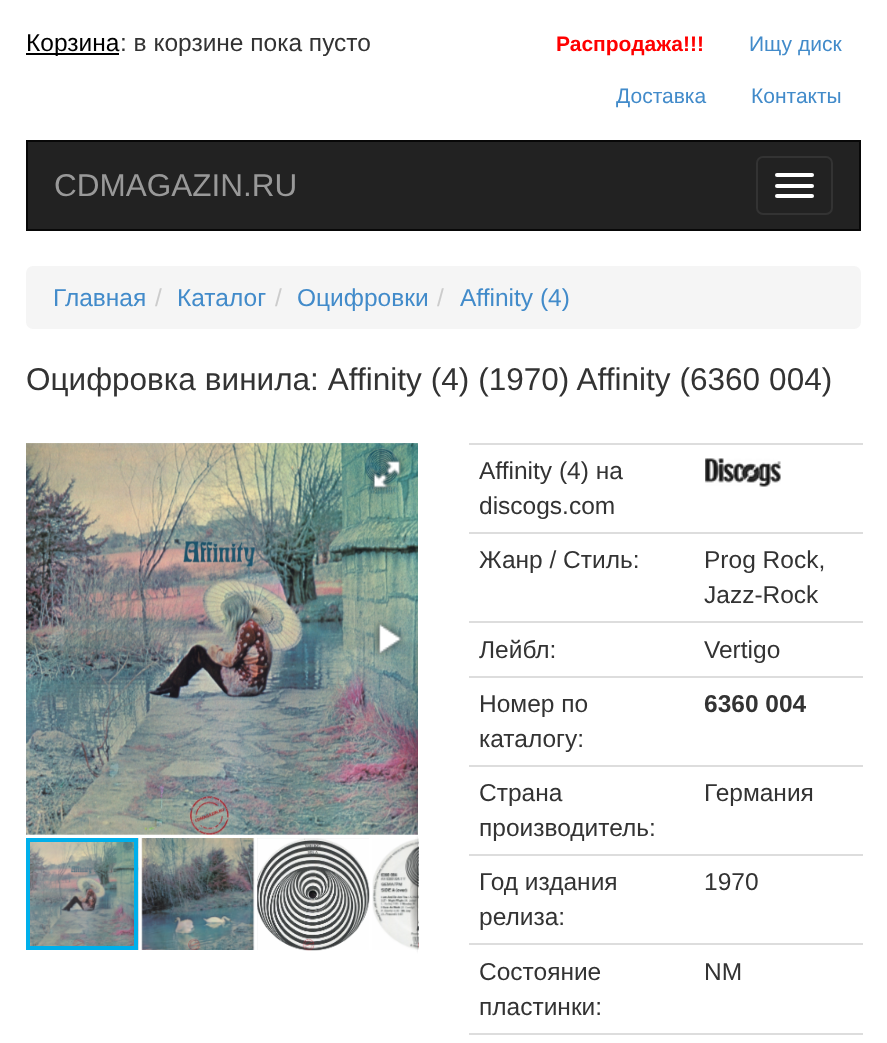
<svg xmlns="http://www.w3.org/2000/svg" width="887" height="1043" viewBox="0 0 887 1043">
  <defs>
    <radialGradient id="g1" gradientUnits="userSpaceOnUse" cx="0" cy="0" r="1" gradientTransform="matrix(9 0 0 60 418 894)"><stop offset="0" stop-color="#000" stop-opacity="0.4"/><stop offset="1" stop-color="#000" stop-opacity="0"/></radialGradient>
    <linearGradient id="g2" gradientUnits="userSpaceOnUse" x1="417" y1="835" x2="417" y2="954"><stop offset="0" stop-color="#000" stop-opacity="0"/><stop offset="0.25" stop-color="#000" stop-opacity="0.2"/><stop offset="0.75" stop-color="#000" stop-opacity="0.3"/><stop offset="1" stop-color="#000" stop-opacity="0"/></linearGradient>
  </defs>
  <rect width="100%" height="100%" fill="#fff"/>
  <path d="M26 53h93v2H26z" fill="#000"/>
  <path d="M27 141h833v89H27z" fill="#222" stroke="#080808" stroke-width="2"/>
  <rect x="757" y="157" width="75" height="57" rx="6" fill="none" stroke="#333" stroke-width="2"/>
  <rect x="775" y="173" width="39" height="4" rx="2" fill="#fff"/>
  <rect x="775" y="184" width="39" height="4" rx="2" fill="#fff"/>
  <rect x="775" y="194" width="39" height="4" rx="2" fill="#fff"/>
  <rect x="26" y="266" width="835" height="63" rx="7" fill="#f5f5f5"/>
  <image x="26" y="443" width="392" height="392" href="img/1.png"/>
  <image x="367" y="455" width="39" height="38" href="img/2.png"/>
  <image x="45" y="625" width="20" height="28" href="img/3.png"/>
  <image x="372" y="620" width="33" height="37" href="img/4.png"/>
  <image x="372" y="838" width="47" height="112" href="img/8.png"/>
  <path d="M410 835h8v119H410z" fill="url(#g1)"/>
  <path d="M417 835h1v119H417z" fill="url(#g2)"/>
  <image x="30" y="838" width="109" height="112" href="img/5.png"/>
  <path d="M28 840h108v108H28z" fill="none" stroke="#00afea" stroke-width="4"/>
  <path d="M142 838h112v112H142z" fill="#e5e5e5"/>
  <image x="141" y="838" width="114" height="112" href="img/6.png"/>
  <path d="M257 838h112v112H257z" fill="#e5e5e5"/>
  <image x="257" y="838" width="113" height="113" href="img/7.png"/>
  <path d="M469 443h394v2H469z" fill="#ddd"/>
  <image x="705" y="458" width="76" height="29" href="img/9.png"/>
  <path d="M469 532h394v2H469z" fill="#ddd"/>
  <path d="M469 621h394v2H469z" fill="#ddd"/>
  <path d="M469 676h394v2H469z" fill="#ddd"/>
  <path d="M469 765h394v2H469z" fill="#ddd"/>
  <path d="M469 854h394v2H469z" fill="#ddd"/>
  <path d="M469 943h394v2H469z" fill="#ddd"/>
  <path d="M469 1033h394v2H469z" fill="#ddd"/>
  <text x="26" y="51" font-family="Liberation Sans" font-size="24.5" fill="#000">Корзина</text>
  <text x="120" y="51" font-family="Liberation Sans" font-size="24.5" fill="#333">: в корзине пока пусто</text>
  <text x="556" y="51" font-family="Liberation Sans" font-size="21" font-weight="bold" fill="#f00">Распродажа!!!</text>
  <g font-family="Liberation Sans" font-size="21" fill="#428bca">
    <text x="749" y="51">Ищу диск</text>
    <text x="616" y="103">Доставка</text>
    <text x="751" y="103">Контакты</text>
  </g>
  <text x="54" y="196" font-family="Liberation Sans" font-size="31.5" fill="#999">CDMAGAZIN.RU</text>
  <text x="53" y="306" font-family="Liberation Sans" font-size="24.5" fill="#428bca">Главная</text>
  <text x="155" y="306" font-family="Liberation Sans" font-size="24.5" fill="#ccc">/</text>
  <text x="177" y="306" font-family="Liberation Sans" font-size="24.5" fill="#428bca">Каталог</text>
  <text x="275" y="306" font-family="Liberation Sans" font-size="24.5" fill="#ccc">/</text>
  <text x="297" y="306" font-family="Liberation Sans" font-size="24.5" fill="#428bca">Оцифровки</text>
  <text x="437" y="306" font-family="Liberation Sans" font-size="24.5" fill="#ccc">/</text>
  <text x="460" y="306" font-family="Liberation Sans" font-size="24.5" fill="#428bca">Affinity (4)</text>
  <text x="26" y="390" word-spacing="0.25" font-family="Liberation Sans" font-size="31.5" fill="#333">Оцифровка винила: Affinity (4) (1970) Affinity (6360 004)</text>
  <g font-family="Liberation Sans" font-size="24.5" fill="#333">
    <text x="479" y="479">Affinity (4) на</text>
    <text x="479" y="514">discogs.com</text>
    <text x="479" y="568">Жанр / Стиль:</text>
    <text x="704" y="568">Prog Rock,</text>
    <text x="704" y="603">Jazz-Rock</text>
    <text x="479" y="658">Лейбл:</text>
    <text x="704" y="658">Vertigo</text>
    <text x="479" y="712">Номер по</text>
    <text x="479" y="747">каталогу:</text>
  </g>
  <text x="704" y="712" font-family="Liberation Sans" font-size="24.5" font-weight="bold" fill="#333">6360 004</text>
  <g font-family="Liberation Sans" font-size="24.5" fill="#333">
    <text x="479" y="801">Страна</text>
    <text x="479" y="836">производитель:</text>
    <text x="704" y="801">Германия</text>
    <text x="479" y="890">Год издания</text>
    <text x="479" y="925">релиза:</text>
    <text x="704" y="890">1970</text>
    <text x="479" y="980">Состояние</text>
    <text x="479" y="1015">пластинки:</text>
    <text x="704" y="980">NM</text>
  </g>
</svg>
